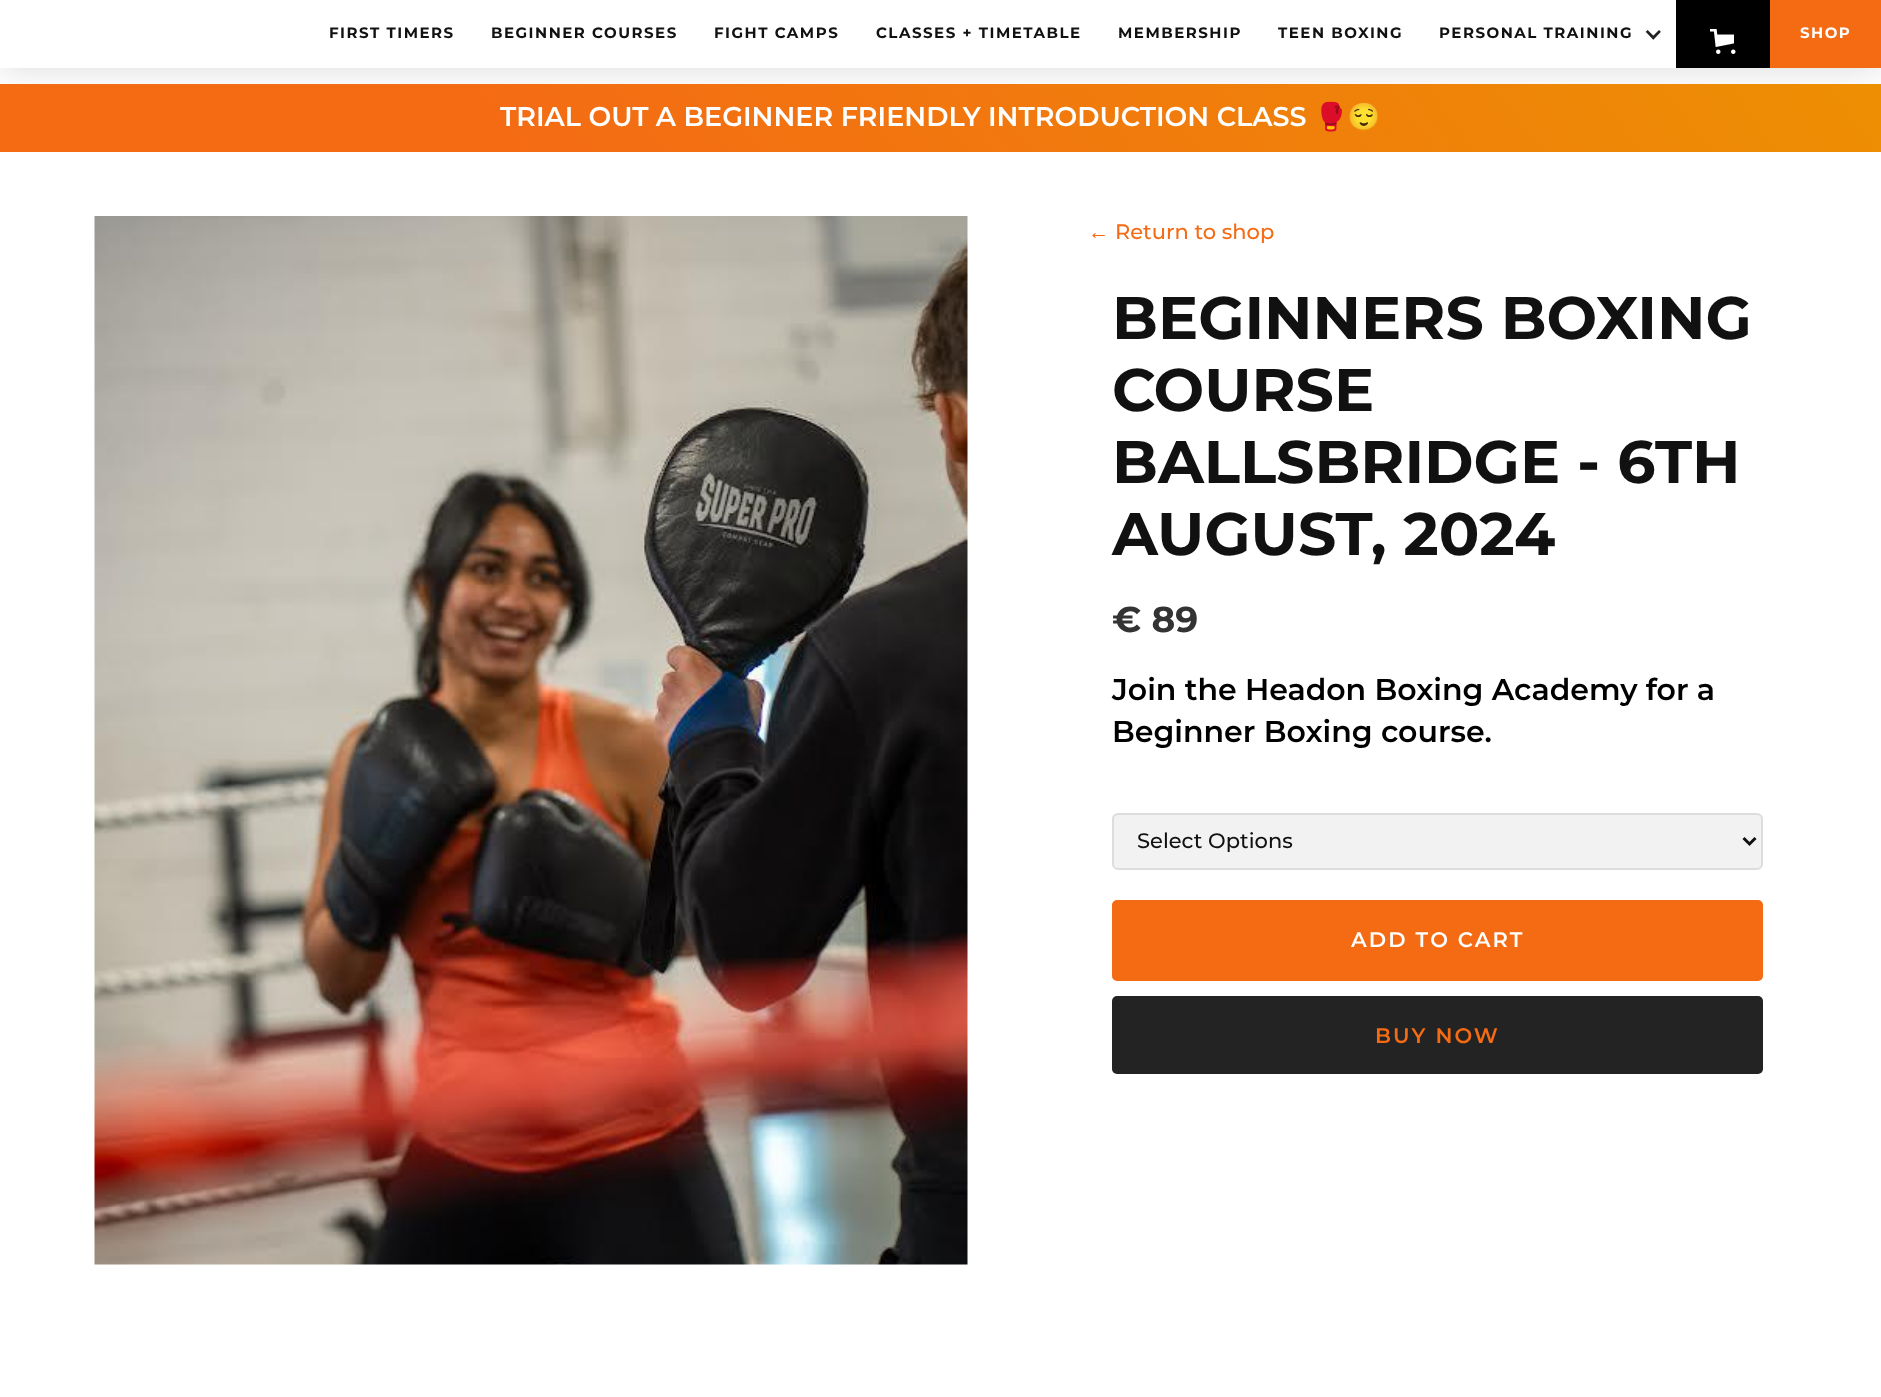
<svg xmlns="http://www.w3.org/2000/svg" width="1881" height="1397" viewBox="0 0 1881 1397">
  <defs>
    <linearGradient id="g1" gradientUnits="userSpaceOnUse" x1="309" y1="577" x2="1572" y2="-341"><stop offset="0.27" stop-color="#f46b14"/><stop offset="1" stop-color="#ed8f03"/></linearGradient>
  </defs>
  <rect width="100%" height="100%" fill="#fff"/>
  <path d="M0 0h1881v68H0z" fill="#00000026" filter="blur(18px)"/>
  <path d="M0 0h1676v68H0z" fill="#fff"/>
  <image x="1645" y="30" width="16" height="10" href="img/1.png"/>
  <path d="M1676 0h94v68H1676z" fill="#000"/>
  <image x="1710" y="29" width="26" height="25" href="img/2.png"/>
  <path d="M1770 0h111v68H1770z" fill="#f46b14"/>
  <path d="M0 84h1881v68H0z" fill="url(#g1)"/>
  <image x="94" y="216" width="874" height="1049" href="img/3.png"/>
  <rect x="1113" y="814" width="649" height="55" rx="5" fill="#f2f2f2" stroke="#ddd" stroke-width="2"/>
  <path d="M1743.5 838L1749.5 844L1755.5 838" fill="none" stroke="#111" stroke-width="3"/>
  <rect x="1113.5" y="901.5" width="648" height="78" rx="3.5" fill="#f46b14" stroke="#f46b14" stroke-width="3"/>
  <rect x="1112" y="996" width="651" height="78" rx="5" fill="#232323"/>
  <g font-family="Montserrat" font-size="15" font-weight="bold" letter-spacing="1.5" fill="#111">
    <text x="329" y="38">FIRST TIMERS</text>
    <text x="491" y="38">BEGINNER COURSES</text>
    <text x="714" y="38">FIGHT CAMPS</text>
    <text x="876" y="38">CLASSES + TIMETABLE</text>
    <text x="1118" y="38">MEMBERSHIP</text>
    <text x="1278" y="38">TEEN BOXING</text>
    <text x="1439" y="38">PERSONAL TRAINING</text>
  </g>
  <text x="1800" y="38" font-family="Montserrat" font-size="15" font-weight="bold" letter-spacing="1.5" fill="#fff">SHOP</text>
  <text x="500" y="126" font-family="Montserrat" font-size="27" font-weight="600" fill="#fff">TRIAL OUT A BEGINNER FRIENDLY INTRODUCTION CLASS</text>
  <text x="1314" y="126" font-family="Noto Color Emoji" font-size="27" font-weight="bold" fill="#fff">🥊😌</text>
  <text x="1088" y="239" font-family="Liberation Sans" font-size="21" font-weight="bold" fill="#f46b14">←</text>
  <text x="1115" y="239" font-family="Montserrat" font-size="21" font-weight="500" fill="#f46b14">Return to shop</text>
  <g font-family="Montserrat" font-size="60" font-weight="bold" fill="#111">
    <text x="1112" y="339">BEGINNERS BOXING</text>
    <text x="1112" y="411">COURSE</text>
    <text x="1112" y="483">BALLSBRIDGE - 6TH</text>
    <text x="1112" y="555">AUGUST, 2024</text>
  </g>
  <text x="1112" y="632" font-family="Montserrat" font-size="36" font-weight="bold" fill="#333">€ 89</text>
  <g font-family="Montserrat" font-size="30" font-weight="600" fill="#000">
    <text x="1112" y="700">Join the Headon Boxing Academy for a</text>
    <text x="1112" y="742">Beginner Boxing course.</text>
  </g>
  <text x="1137" y="848" font-family="Montserrat" font-size="21" font-weight="500" fill="#111">Select Options</text>
  <text x="1351" y="947" font-family="Montserrat" font-size="21" font-weight="600" letter-spacing="2.1" fill="#fff">ADD TO CART</text>
  <text x="1375" y="1043" font-family="Montserrat" font-size="21" font-weight="600" letter-spacing="2.1" fill="#f46b14">BUY NOW</text>
</svg>
